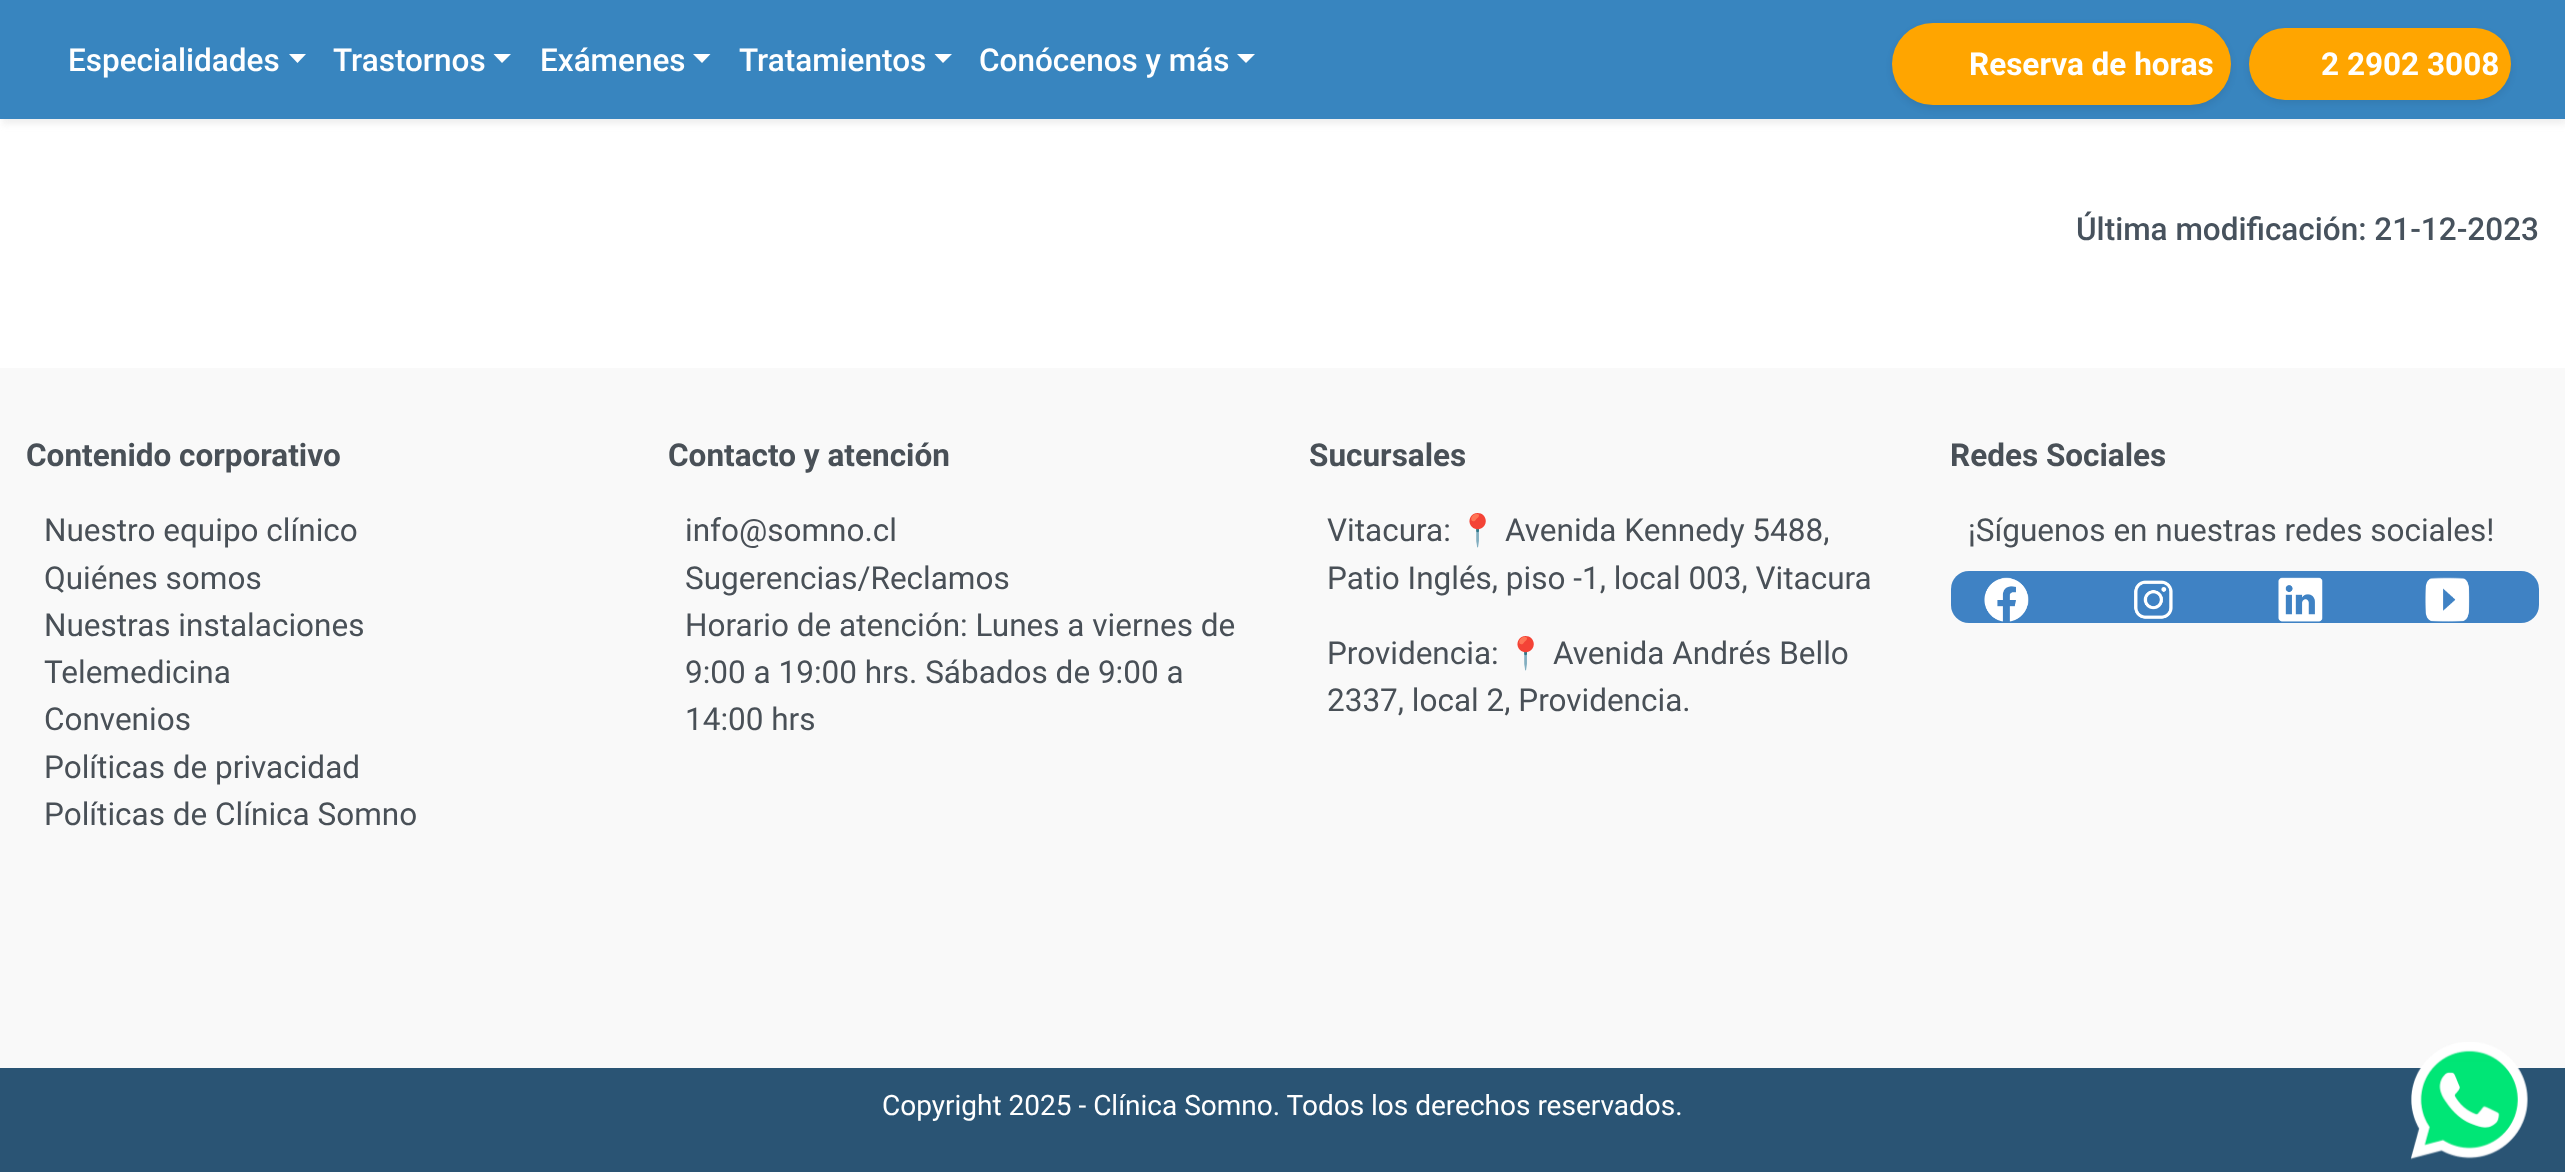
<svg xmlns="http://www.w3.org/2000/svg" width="2565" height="1172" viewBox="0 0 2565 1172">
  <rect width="100%" height="100%" fill="#fff"/>
  <path d="M2 5h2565v119H2z" fill="#adadad33" filter="blur(3.5px)"/>
  <path d="M0 0h2565v119H0z" fill="#3885bf"/>
  <path d="M289 54H306L297.5 63Z" fill="#fff"/>
  <path d="M493.5 54H511L502 63Z" fill="#fff"/>
  <path d="M693 54H710.5L702 63Z" fill="#fff"/>
  <path d="M934.5 54H952L943 63Z" fill="#fff"/>
  <path d="M1237 54H1255L1246 63Z" fill="#fff"/>
  <rect x="1892" y="26" width="339" height="83" rx="41.5" fill="#00000014" filter="blur(3.5px)"/>
  <rect x="1892" y="23" width="339" height="82" rx="41" fill="#ffa500"/>
  <rect x="2249" y="32" width="262" height="71" rx="35.5" fill="#00000014" filter="blur(3.5px)"/>
  <rect x="2249" y="28" width="262" height="72" rx="36" fill="#ffa500"/>
  <path d="M0 368h2565v700H0z" fill="#f9f9f9"/>
  <rect x="1951" y="571" width="588" height="52" rx="18" fill="#3f82c4"/>
  <image x="1984" y="577" width="45" height="45" href="img/1.png"/>
  <image x="2134" y="580" width="39" height="39" href="img/2.png"/>
  <image x="2278" y="577" width="45" height="45" href="img/3.png"/>
  <image x="2425" y="577" width="45" height="45" href="img/4.png"/>
  <path d="M0 1068h2565v104H0z" fill="#2a5474"/>
  <image x="2410" y="1042" width="118" height="118" href="img/5.png"/>
  <g font-family="Roboto" font-size="31.5" font-weight="500" fill="#fff">
    <text x="68" y="71">Especialidades</text>
    <text x="333" y="71">Trastornos</text>
    <text x="540" y="71">Exámenes</text>
    <text x="739" y="71">Tratamientos</text>
    <text x="979" y="71">Conócenos y más</text>
  </g>
  <g font-family="Roboto" font-size="31.5" font-weight="bold" fill="#fff">
    <text x="1969" y="75">Reserva de horas</text>
    <text x="2321" y="75">2 2902 3008</text>
  </g>
  <text x="2076" y="240" font-family="Roboto" font-size="31.5" font-weight="500" fill="#47525d">Última modificación: 21-12-2023</text>
  <text x="26" y="466" font-family="Roboto" font-size="31.5" font-weight="bold" fill="#495057">Contenido corporativo</text>
  <g font-family="Roboto" font-size="31.5" fill="#495057">
    <text x="44" y="541">Nuestro equipo clínico</text>
    <text x="44" y="589">Quiénes somos</text>
    <text x="44" y="636">Nuestras instalaciones</text>
    <text x="44" y="683">Telemedicina</text>
    <text x="44" y="730">Convenios</text>
    <text x="44" y="778">Políticas de privacidad</text>
    <text x="44" y="825">Políticas de Clínica Somno</text>
  </g>
  <text x="668" y="466" font-family="Roboto" font-size="31.5" font-weight="bold" fill="#495057">Contacto y atención</text>
  <g font-family="Roboto" font-size="31.5" fill="#495057">
    <text x="685" y="541">info@somno.cl</text>
    <text x="685" y="589">Sugerencias/Reclamos</text>
    <text x="685" y="636">Horario de atención: Lunes a viernes de</text>
    <text x="685" y="683">9:00 a 19:00 hrs. Sábados de 9:00 a</text>
    <text x="685" y="730">14:00 hrs</text>
  </g>
  <text x="1309" y="466" font-family="Roboto" font-size="31.5" font-weight="bold" fill="#495057">Sucursales</text>
  <text x="1327" y="541" font-family="Roboto" font-size="31.5" fill="#495057">Vitacura:</text>
  <text x="1458" y="541" font-family="Noto Color Emoji" font-size="31.5" fill="#495057">📍</text>
  <g font-family="Roboto" font-size="31.5" fill="#495057">
    <text x="1505" y="541">Avenida Kennedy 5488,</text>
    <text x="1327" y="589">Patio Inglés, piso -1, local 003, Vitacura</text>
    <text x="1327" y="664">Providencia:</text>
  </g>
  <text x="1506" y="664" font-family="Noto Color Emoji" font-size="31.5" fill="#495057">📍</text>
  <g font-family="Roboto" font-size="31.5" fill="#495057">
    <text x="1553" y="664">Avenida Andrés Bello</text>
    <text x="1327" y="711">2337, local 2, Providencia.</text>
  </g>
  <text x="1950" y="466" font-family="Roboto" font-size="31.5" font-weight="bold" fill="#495057">Redes Sociales</text>
  <text x="1968" y="541" font-family="Roboto" font-size="31.5" fill="#495057">¡Síguenos en nuestras redes sociales!</text>
  <text x="882" y="1115" font-family="Roboto" font-size="28" fill="#fff">Copyright 2025 - Clínica Somno. Todos los derechos reservados.</text>
</svg>
